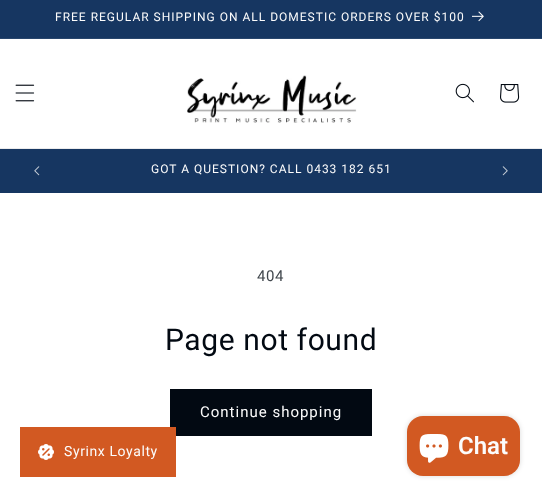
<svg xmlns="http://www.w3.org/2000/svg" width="542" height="497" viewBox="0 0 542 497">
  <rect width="100%" height="100%" fill="#fff"/>
  <path d="M0 0h542v38H0z" fill="#163661"/>
  <path d="M0 38h542v1H0z" fill="#28466d"/>
  <image x="472" y="11" width="12" height="11" href="img/1.png"/>
  <path d="M0 148h542v1H0z" fill="#ebebec"/>
  <image x="15" y="84" width="20" height="18" href="img/2.png"/>
  <image x="187" y="75" width="170" height="48" href="img/3.png"/>
  <image x="455" y="83" width="19" height="20" href="img/4.png"/>
  <image x="500" y="84" width="20" height="19" href="img/5.png"/>
  <path d="M0 149h542v44H0z" fill="#163661"/>
  <image x="34" y="166" width="6" height="10" href="img/6.png"/>
  <image x="502" y="166" width="6" height="10" href="img/7.png"/>
  <path d="M170 389h202v47H170z" fill="#020912"/>
  <path d="M20 427h156v50H20z" fill="#d25922"/>
  <image x="38" y="444" width="16" height="16" href="img/8.png"/>
  <rect x="407" y="416" width="113" height="60" rx="16" fill="#00000026" filter="blur(2.5px)"/>
  <rect x="407" y="416" width="113" height="60" rx="16" fill="#d25922"/>
  <image x="419" y="434" width="30" height="29" href="img/9.png"/>
  <g font-family="Roboto" font-size="12" letter-spacing="1" fill="#fcfcfc">
    <text x="55" y="21">FREE REGULAR SHIPPING ON ALL DOMESTIC ORDERS OVER $100</text>
    <text x="151" y="173">GOT A QUESTION? CALL 0433 182 651</text>
  </g>
  <text x="257" y="281" font-family="Roboto" font-size="15" letter-spacing="0.6" fill="#41474d">404</text>
  <text x="165" y="350" font-family="Roboto" font-size="30" letter-spacing="0.6" fill="#020912">Page not found</text>
  <text x="200" y="417" font-family="Roboto" font-size="15" letter-spacing="1" fill="#fcfcfc">Continue shopping</text>
  <text x="64" y="456" font-family="Roboto" font-size="14" letter-spacing="0.6" fill="#fcfcfc">Syrinx Loyalty</text>
  <text x="458" y="454" font-family="Roboto" font-size="24" font-weight="600" fill="#fcfcfc">Chat</text>
</svg>
